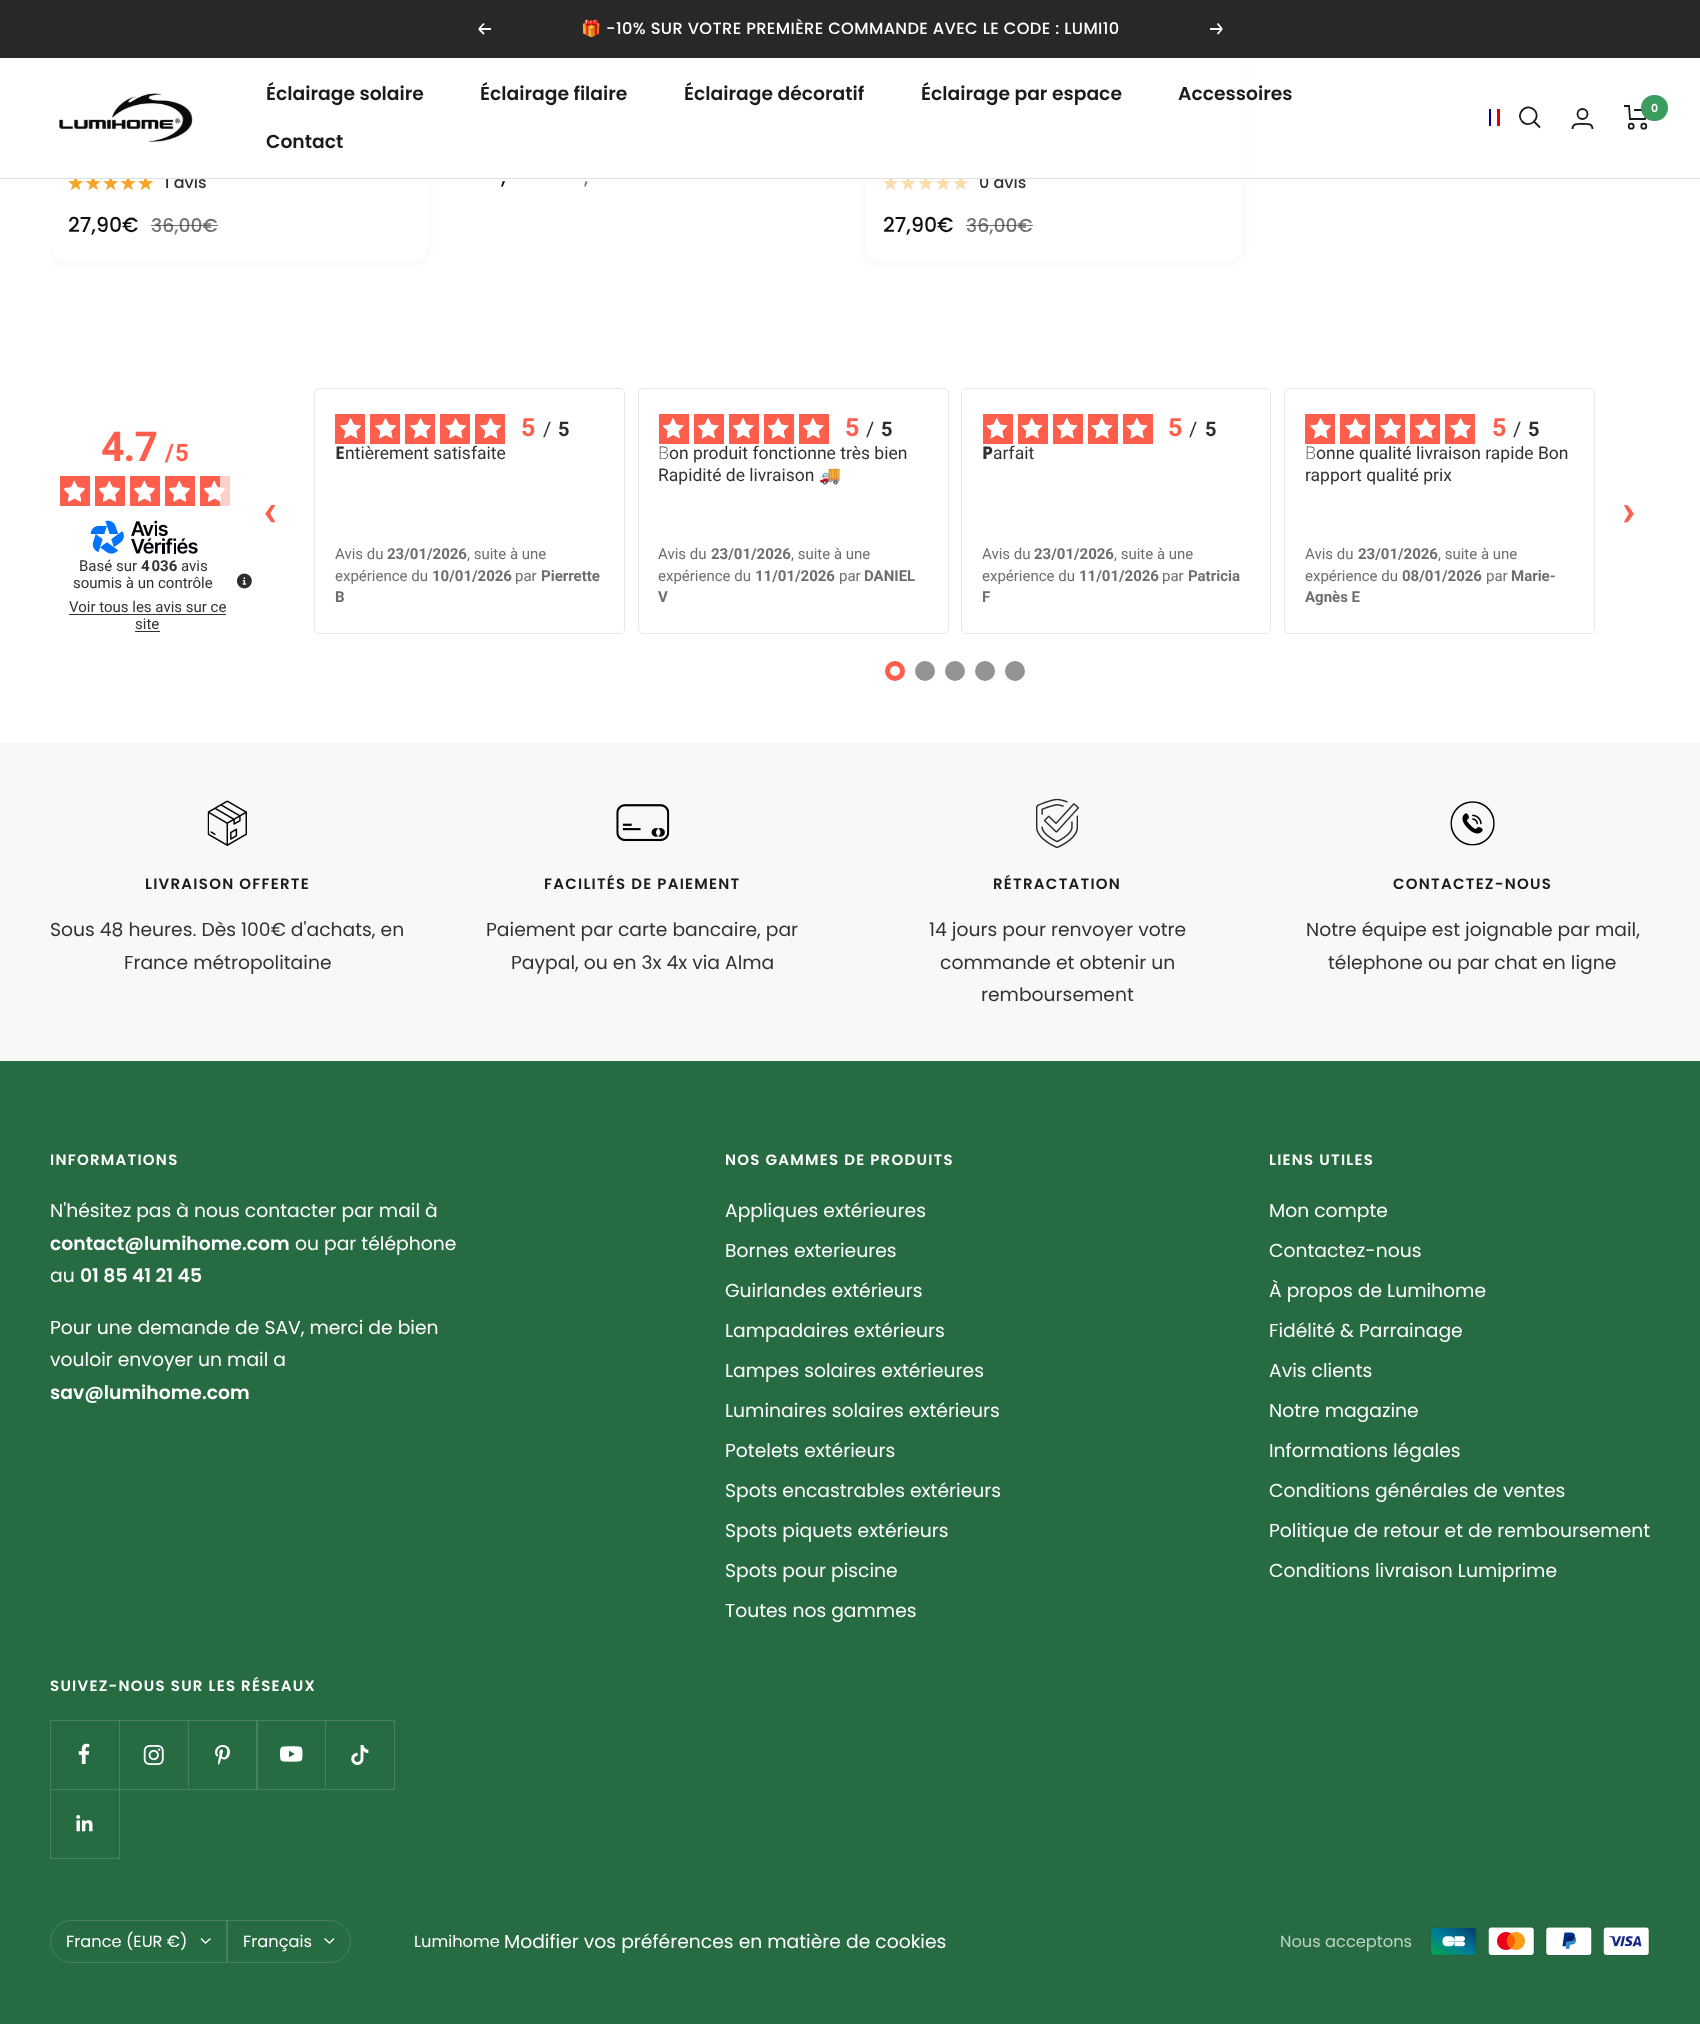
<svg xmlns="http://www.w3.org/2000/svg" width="1700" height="2024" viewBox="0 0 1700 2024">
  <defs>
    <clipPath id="clip1"><path d="M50 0h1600v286H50z"/></clipPath>
  </defs>
  <rect width="100%" height="100%" fill="#fff"/>
  <g clip-path="url(#clip1)">
    <rect x="50" y="-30" width="378" height="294" rx="15" fill="#0000000a" filter="blur(5px)"/>
  </g>
  <rect x="50" y="-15" width="378" height="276" rx="15" fill="#fff"/>
  <rect x="865" y="-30" width="378" height="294" rx="15" fill="#0000000a" filter="blur(5px)"/>
  <rect x="865" y="-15" width="378" height="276" rx="15" fill="#fff"/>
  <path d="M0 0h1700v58H0z" fill="#282828"/>
  <path d="M491 29H479M479 29L484 34M479 29L484 23.5" fill="none" stroke="#fff" stroke-width="1.8"/>
  <path d="M1210 29H1222M1222 29L1217.5 34M1222 29L1217.5 23.5" fill="none" stroke="#fff" stroke-width="1.8"/>
  <path d="M1534 121.5C1542 114 1530.5 102 1522.5 110C1514.5 118 1526.5 129.5 1534 121.5ZM1534 121.5L1540 127.5" fill="none" stroke="#1b1b1b" stroke-width="1.8"/>
  <rect x="1473" y="95" width="46" height="45" rx="6" fill="#fff"/>
  <path d="M1489 109h2v17H1489z" fill="#000091"/>
  <path d="M1497 109h3v17H1497z" fill="#e1000f"/>
  <circle cx="1582.5" cy="114" r="5" fill="none" stroke="#1b1b1b" stroke-width="1.8"/>
  <path d="M1572.5 129C1572.5 123 1578.5 124 1582.5 124C1586.5 124 1592.5 123 1592.5 129" fill="none" stroke="#1b1b1b" stroke-width="1.8"/>
  <path d="M1624 106H1629L1630 119H1645L1647.5 110H1634" fill="none" stroke="#1b1b1b" stroke-width="1.8"/>
  <circle cx="1631.2" cy="126.2" r="2.5" fill="none" stroke="#1b1b1b" stroke-width="1.8"/>
  <circle cx="1643.8" cy="126.2" r="2.5" fill="none" stroke="#1b1b1b" stroke-width="1.8"/>
  <rect x="1641" y="95" width="27" height="26" rx="13" fill="#3a9d5f"/>
  <image x="68" y="179" width="16" height="12" href="img/2.png"/>
  <image x="85" y="179" width="16" height="12" href="img/3.png"/>
  <image x="103" y="179" width="16" height="12" href="img/2.png"/>
  <image x="120" y="179" width="16" height="12" href="img/3.png"/>
  <image x="138" y="179" width="16" height="12" href="img/2.png"/>
  <image x="883" y="179" width="15" height="11" href="img/4.png"/>
  <image x="900" y="179" width="16" height="11" href="img/5.png"/>
  <image x="918" y="179" width="15" height="11" href="img/4.png"/>
  <image x="935" y="179" width="16" height="11" href="img/5.png"/>
  <image x="953" y="179" width="15" height="11" href="img/4.png"/>
  <path d="M60 476h30v30H60z" fill="#ff5e4d"/>
  <image x="64" y="481" width="21" height="21" href="img/7.png"/>
  <image x="64" y="480" width="21" height="21" href="img/6.png"/>
  <path d="M95 476h30v30H95z" fill="#ff5e4d"/>
  <image x="99" y="481" width="21" height="21" href="img/7.png"/>
  <image x="99" y="480" width="21" height="21" href="img/6.png"/>
  <path d="M130 476h30v30H130z" fill="#ff5e4d"/>
  <image x="134" y="481" width="21" height="21" href="img/7.png"/>
  <image x="134" y="480" width="21" height="21" href="img/6.png"/>
  <path d="M165 476h30v30H165z" fill="#ff5e4d"/>
  <image x="169" y="481" width="21" height="21" href="img/7.png"/>
  <image x="169" y="480" width="21" height="21" href="img/6.png"/>
  <path d="M200 476h20v30H200z" fill="#ff5e4d"/>
  <path d="M220 476h10v30H220z" fill="#ffcfca"/>
  <image x="204" y="481" width="21" height="21" href="img/9.png"/>
  <image x="204" y="480" width="21" height="21" href="img/8.png"/>
  <image x="90" y="520" width="108" height="34" href="img/10.png"/>
  <image x="237" y="573" width="15" height="16" href="img/11.png"/>
  <path d="M69 614h157v1H69z" fill="#313235"/>
  <path d="M135 631h25v1H135z" fill="#313235"/>
  <rect x="314.5" y="388.5" width="310" height="245" rx="4.5" fill="none" stroke="#e7e7e7"/>
  <path d="M335 414h30v30H335z" fill="#ff5e4d"/>
  <image x="340" y="418" width="21" height="21" href="img/12.png"/>
  <image x="340" y="418" width="21" height="21" href="img/13.png"/>
  <path d="M370 414h30v30H370z" fill="#ff5e4d"/>
  <image x="375" y="418" width="21" height="21" href="img/12.png"/>
  <image x="375" y="418" width="21" height="21" href="img/13.png"/>
  <path d="M405 414h30v30H405z" fill="#ff5e4d"/>
  <image x="410" y="418" width="21" height="21" href="img/12.png"/>
  <image x="410" y="418" width="21" height="21" href="img/13.png"/>
  <path d="M440 414h30v30H440z" fill="#ff5e4d"/>
  <image x="445" y="418" width="21" height="21" href="img/12.png"/>
  <image x="445" y="418" width="21" height="21" href="img/13.png"/>
  <path d="M475 414h30v30H475z" fill="#ff5e4d"/>
  <image x="480" y="418" width="21" height="21" href="img/12.png"/>
  <image x="480" y="418" width="21" height="21" href="img/13.png"/>
  <rect x="638.5" y="388.5" width="310" height="245" rx="4.5" fill="none" stroke="#e7e7e7"/>
  <path d="M659 414h30v30H659z" fill="#ff5e4d"/>
  <image x="663" y="418" width="21" height="21" href="img/14.png"/>
  <image x="663" y="418" width="21" height="21" href="img/15.png"/>
  <path d="M694 414h30v30H694z" fill="#ff5e4d"/>
  <image x="698" y="418" width="21" height="21" href="img/14.png"/>
  <image x="698" y="418" width="21" height="21" href="img/15.png"/>
  <path d="M729 414h30v30H729z" fill="#ff5e4d"/>
  <image x="733" y="418" width="21" height="21" href="img/14.png"/>
  <image x="733" y="418" width="21" height="21" href="img/15.png"/>
  <path d="M764 414h30v30H764z" fill="#ff5e4d"/>
  <image x="768" y="418" width="21" height="21" href="img/14.png"/>
  <image x="768" y="418" width="21" height="21" href="img/15.png"/>
  <path d="M799 414h30v30H799z" fill="#ff5e4d"/>
  <image x="803" y="418" width="21" height="21" href="img/14.png"/>
  <image x="803" y="418" width="21" height="21" href="img/15.png"/>
  <rect x="961.5" y="388.5" width="309" height="245" rx="4.5" fill="none" stroke="#e7e7e7"/>
  <path d="M983 414h30v30H983z" fill="#ff5e4d"/>
  <image x="986" y="418" width="22" height="21" href="img/16.png"/>
  <image x="986" y="418" width="22" height="21" href="img/17.png"/>
  <path d="M1018 414h30v30H1018z" fill="#ff5e4d"/>
  <image x="1021" y="418" width="22" height="21" href="img/16.png"/>
  <image x="1021" y="418" width="22" height="21" href="img/17.png"/>
  <path d="M1053 414h30v30H1053z" fill="#ff5e4d"/>
  <image x="1056" y="418" width="22" height="21" href="img/16.png"/>
  <image x="1056" y="418" width="22" height="21" href="img/17.png"/>
  <path d="M1088 414h30v30H1088z" fill="#ff5e4d"/>
  <image x="1091" y="418" width="22" height="21" href="img/16.png"/>
  <image x="1091" y="418" width="22" height="21" href="img/17.png"/>
  <path d="M1123 414h30v30H1123z" fill="#ff5e4d"/>
  <image x="1126" y="418" width="22" height="21" href="img/16.png"/>
  <image x="1126" y="418" width="22" height="21" href="img/17.png"/>
  <rect x="1284.5" y="388.5" width="310" height="245" rx="4.5" fill="none" stroke="#e7e7e7"/>
  <path d="M1305 414h30v30H1305z" fill="#ff5e4d"/>
  <image x="1310" y="418" width="21" height="21" href="img/12.png"/>
  <image x="1310" y="418" width="21" height="21" href="img/13.png"/>
  <path d="M1340 414h30v30H1340z" fill="#ff5e4d"/>
  <image x="1345" y="418" width="21" height="21" href="img/12.png"/>
  <image x="1345" y="418" width="21" height="21" href="img/13.png"/>
  <path d="M1375 414h30v30H1375z" fill="#ff5e4d"/>
  <image x="1380" y="418" width="21" height="21" href="img/12.png"/>
  <image x="1380" y="418" width="21" height="21" href="img/13.png"/>
  <path d="M1410 414h30v30H1410z" fill="#ff5e4d"/>
  <image x="1415" y="418" width="21" height="21" href="img/12.png"/>
  <image x="1415" y="418" width="21" height="21" href="img/13.png"/>
  <path d="M1445 414h30v30H1445z" fill="#ff5e4d"/>
  <image x="1450" y="418" width="21" height="21" href="img/12.png"/>
  <image x="1450" y="418" width="21" height="21" href="img/13.png"/>
  <circle cx="895" cy="671" r="7.5" fill="none" stroke="#ff5e4d" stroke-width="5"/>
  <circle cx="925" cy="671" r="10" fill="#949494"/>
  <circle cx="955" cy="671" r="10" fill="#949494"/>
  <circle cx="985" cy="671" r="10" fill="#949494"/>
  <circle cx="1015" cy="671" r="10" fill="#949494"/>
  <path d="M0 743h1700v318H0z" fill="#f7f9f7"/>
  <image x="207" y="800" width="40" height="46" href="img/18.png"/>
  <image x="616" y="804" width="54" height="38" href="img/19.png"/>
  <image x="1036" y="798" width="43" height="50" href="img/20.png"/>
  <image x="1450" y="801" width="45" height="45" href="img/21.png"/>
  <path d="M0 1061h1700v963H0z" fill="#276b42"/>
  <path d="M51 1789V1790H120V1721H119V1789Z" fill="#47815e"/>
  <path d="M50 1789V1790H119V1721V1789Z" fill="#47815e"/>
  <path d="M51 1789H120V1720H119V1789Z" fill="#47815e"/>
  <path d="M50 1720h138v1H50z" fill="#47815e"/>
  <path d="M50 1720h1v138H50z" fill="#47815e"/>
  <image x="78" y="1743" width="12" height="21" href="img/22.png"/>
  <path d="M120 1789V1790H189V1721H188V1789Z" fill="#47815e"/>
  <path d="M120 1789H189V1720H188V1789Z" fill="#47815e"/>
  <image x="143" y="1745" width="21" height="20" href="img/23.png"/>
  <path d="M189 1789V1790H258V1721H256V1789Z" fill="#47815e"/>
  <path d="M189 1789H258V1720H256V1789Z" fill="#47815e"/>
  <path d="M188 1720h137v1H188z" fill="#47815e"/>
  <image x="215" y="1745" width="15" height="20" href="img/24.png"/>
  <path d="M258 1789V1790H326V1721H325V1789Z" fill="#47815e"/>
  <path d="M258 1789H326V1720H325V1789Z" fill="#47815e"/>
  <image x="280" y="1746" width="23" height="16" href="img/25.png"/>
  <path d="M326 1789V1790H395V1721H394V1789Z" fill="#47815e"/>
  <path d="M326 1789H395V1720H394V1789Z" fill="#47815e"/>
  <path d="M325 1720h69v1H325z" fill="#47815e"/>
  <image x="351" y="1745" width="18" height="20" href="img/26.png"/>
  <path d="M51 1858V1859H120V1790H119V1858Z" fill="#47815e"/>
  <path d="M50 1858V1859H119V1790V1858Z" fill="#47815e"/>
  <image x="76" y="1815" width="17" height="17" href="img/27.png"/>
  <path d="M71.5 1920.5H227.5V1962.5H71.5C60 1962.5 50.5 1953 50.5 1941.5C50.5 1930 60 1920.5 71.5 1920.5Z" fill="none" stroke="#47815e"/>
  <path d="M201 1938.5L205.5 1943L210.5 1938.5" fill="none" stroke="#fff" stroke-width="1.3"/>
  <path d="M226.5 1920.5H329.5C341 1920.5 350.5 1930 350.5 1941.5C350.5 1953 341 1962.5 329.5 1962.5H226.5Z" fill="none" stroke="#47815e"/>
  <path d="M324.5 1938.5L329.5 1943L334 1938.5" fill="none" stroke="#fff" stroke-width="1.3"/>
  <image x="1430" y="1926" width="48" height="30" href="img/28.png"/>
  <image x="1488" y="1926" width="47" height="30" href="img/29.png"/>
  <image x="1545" y="1926" width="47" height="30" href="img/30.png"/>
  <image x="1603" y="1926" width="47" height="30" href="img/31.png"/>
  <text x="581" y="34" font-family="Noto Color Emoji" font-size="16.25" letter-spacing="0.38" fill="#fff">🎁</text>
  <text x="606" y="34" font-family="Poppins" font-size="16.25" font-weight="500" letter-spacing="0.38" fill="#fff">-10% SUR VOTRE PREMIÈRE COMMANDE AVEC LE CODE : LUMI10</text>
  <text x="1651" y="112" font-family="Poppins" font-size="11" font-weight="600" fill="#fff">0</text>
  <text x="164" y="188" font-family="Poppins" font-size="16" font-weight="500" fill="#313235">1 avis</text>
  <text x="68" y="232" font-family="Poppins" font-size="20.5" font-weight="500" fill="#101010">27,90€</text>
  <text x="151" y="232" font-family="Poppins" font-size="18.75" font-weight="500" fill="#757575">36,00€</text>
  <path d="M151 225h67v1H151z" fill="#282828a3"/>
  <text x="501" y="184" font-family="Poppins" font-size="20.5" font-weight="500" fill="#101010">,</text>
  <text x="584" y="184" font-family="Poppins" font-size="18.75" font-weight="500" fill="#757575">,</text>
  <text x="979" y="188" font-family="Poppins" font-size="16" font-weight="500" fill="#313235">0 avis</text>
  <path d="M164 58h1082v120H164z" fill="#fff"/>
  <image x="58" y="93" width="135" height="50" href="img/1.png"/>
  <g font-family="Poppins" font-size="18.75" font-weight="600" fill="#1b1b1b">
    <text x="266" y="148">Contact</text>
    <text x="1178" y="100">Accessoires</text>
    <text x="921" y="100">Éclairage par espace</text>
    <text x="684" y="100">Éclairage décoratif</text>
    <text x="480" y="100">Éclairage filaire</text>
    <text x="266" y="100">Éclairage solaire</text>
  </g>
  <path d="M0 178h1700v1H0z" fill="#e0e0e0"/>
  <text x="883" y="232" font-family="Poppins" font-size="20.5" font-weight="500" fill="#101010">27,90€</text>
  <text x="966" y="232" font-family="Poppins" font-size="18.75" font-weight="500" fill="#757575">36,00€</text>
  <path d="M966 225h67v1H966z" fill="#282828a3"/>
  <text x="101" y="461" font-family="Roboto" font-size="41" font-weight="bold" letter-spacing="-1" fill="#ff5e4d">4.7</text>
  <g font-family="Roboto" font-size="24" font-weight="bold" fill="#ff5e4d">
    <text x="165" y="461">/</text>
    <text x="175" y="461">5</text>
  </g>
  <text x="79" y="571" font-family="Roboto" font-size="15" fill="#313235">Basé sur</text>
  <text x="141" y="571" font-family="Roboto" font-size="15" font-weight="bold" fill="#313235">4 036</text>
  <g font-family="Roboto" font-size="15" fill="#313235">
    <text x="181" y="571">avis</text>
    <text x="73" y="588">soumis à un contrôle</text>
    <text x="69" y="612">Voir tous les avis sur ce</text>
    <text x="135" y="629">site</text>
  </g>
  <text x="263" y="525" font-family="Roboto" font-size="44" font-weight="bold" fill="#ff5e4d">‹</text>
  <text x="521" y="436" font-family="Roboto" font-size="25" font-weight="bold" letter-spacing="1" fill="#ff5e4d">5</text>
  <text x="543" y="436" font-family="Roboto" font-size="20" letter-spacing="1" fill="#2f2e2e">/</text>
  <text x="558" y="436" font-family="Roboto" font-size="20" font-weight="bold" letter-spacing="1" fill="#2f2e2e">5</text>
  <text x="335" y="459" font-family="Noto Sans" font-size="17.5" font-weight="bold" fill="#313235">E</text>
  <text x="345" y="459" font-family="Roboto" font-size="17.5" fill="#313235">ntièrement satisfaite</text>
  <text x="335" y="559" font-family="Roboto" font-size="15" fill="#706d6d">Avis du</text>
  <text x="387" y="559" font-family="Roboto" font-size="15" font-weight="bold" fill="#706d6d">23/01/2026</text>
  <g font-family="Roboto" font-size="15" fill="#706d6d">
    <text x="467" y="559">, suite à une</text>
    <text x="335" y="581">expérience du</text>
  </g>
  <text x="432" y="581" font-family="Roboto" font-size="15" font-weight="bold" fill="#706d6d">10/01/2026</text>
  <text x="515" y="581" font-family="Roboto" font-size="15" fill="#706d6d">par</text>
  <g font-family="Roboto" font-size="15" font-weight="bold" fill="#706d6d">
    <text x="541" y="581">Pierrette</text>
    <text x="335" y="602">B</text>
  </g>
  <text x="845" y="436" font-family="Roboto" font-size="25" font-weight="bold" letter-spacing="1" fill="#ff5e4d">5</text>
  <text x="866" y="436" font-family="Roboto" font-size="20" letter-spacing="1" fill="#2f2e2e">/</text>
  <text x="881" y="436" font-family="Roboto" font-size="20" font-weight="bold" letter-spacing="1" fill="#2f2e2e">5</text>
  <text x="658" y="459" font-family="Noto Sans" font-size="17.5" font-weight="200" fill="#313235">B</text>
  <g font-family="Roboto" font-size="17.5" fill="#313235">
    <text x="669" y="459">on produit fonctionne très bien</text>
    <text x="658" y="481">Rapidité de livraison</text>
  </g>
  <text x="819" y="481" font-family="Noto Color Emoji" font-size="17.5" fill="#313235">🚚</text>
  <text x="658" y="559" font-family="Roboto" font-size="15" fill="#706d6d">Avis du</text>
  <text x="711" y="559" font-family="Roboto" font-size="15" font-weight="bold" fill="#706d6d">23/01/2026</text>
  <g font-family="Roboto" font-size="15" fill="#706d6d">
    <text x="791" y="559">, suite à une</text>
    <text x="658" y="581">expérience du</text>
  </g>
  <text x="755" y="581" font-family="Roboto" font-size="15" font-weight="bold" fill="#706d6d">11/01/2026</text>
  <text x="839" y="581" font-family="Roboto" font-size="15" fill="#706d6d">par</text>
  <g font-family="Roboto" font-size="15" font-weight="bold" fill="#706d6d">
    <text x="864" y="581">DANIEL</text>
    <text x="658" y="602">V</text>
  </g>
  <text x="1168" y="436" font-family="Roboto" font-size="25" font-weight="bold" letter-spacing="1" fill="#ff5e4d">5</text>
  <text x="1189" y="436" font-family="Roboto" font-size="20" letter-spacing="1" fill="#2f2e2e">/</text>
  <text x="1205" y="436" font-family="Roboto" font-size="20" font-weight="bold" letter-spacing="1" fill="#2f2e2e">5</text>
  <text x="982" y="459" font-family="Noto Sans" font-size="17.5" font-weight="800" fill="#313235">P</text>
  <text x="993" y="459" font-family="Roboto" font-size="17.5" fill="#313235">arfait</text>
  <text x="982" y="559" font-family="Roboto" font-size="15" fill="#706d6d">Avis du</text>
  <text x="1034" y="559" font-family="Roboto" font-size="15" font-weight="bold" fill="#706d6d">23/01/2026</text>
  <g font-family="Roboto" font-size="15" fill="#706d6d">
    <text x="1114" y="559">, suite à une</text>
    <text x="982" y="581">expérience du</text>
  </g>
  <text x="1079" y="581" font-family="Roboto" font-size="15" font-weight="bold" fill="#706d6d">11/01/2026</text>
  <text x="1162" y="581" font-family="Roboto" font-size="15" fill="#706d6d">par</text>
  <g font-family="Roboto" font-size="15" font-weight="bold" fill="#706d6d">
    <text x="1188" y="581">Patricia</text>
    <text x="982" y="602">F</text>
  </g>
  <text x="1492" y="436" font-family="Roboto" font-size="25" font-weight="bold" letter-spacing="1" fill="#ff5e4d">5</text>
  <text x="1513" y="436" font-family="Roboto" font-size="20" letter-spacing="1" fill="#2f2e2e">/</text>
  <text x="1528" y="436" font-family="Roboto" font-size="20" font-weight="bold" letter-spacing="1" fill="#2f2e2e">5</text>
  <text x="1305" y="459" font-family="Noto Sans" font-size="17.5" font-weight="200" fill="#313235">B</text>
  <g font-family="Roboto" font-size="17.5" fill="#313235">
    <text x="1316" y="459">onne qualité livraison rapide Bon</text>
    <text x="1305" y="481">rapport qualité prix</text>
  </g>
  <text x="1305" y="559" font-family="Roboto" font-size="15" fill="#706d6d">Avis du</text>
  <text x="1358" y="559" font-family="Roboto" font-size="15" font-weight="bold" fill="#706d6d">23/01/2026</text>
  <g font-family="Roboto" font-size="15" fill="#706d6d">
    <text x="1438" y="559">, suite à une</text>
    <text x="1305" y="581">expérience du</text>
  </g>
  <text x="1402" y="581" font-family="Roboto" font-size="15" font-weight="bold" fill="#706d6d">08/01/2026</text>
  <text x="1486" y="581" font-family="Roboto" font-size="15" fill="#706d6d">par</text>
  <g font-family="Roboto" font-size="15" font-weight="bold" fill="#706d6d">
    <text x="1511" y="581">Marie-</text>
    <text x="1305" y="602">Agnès E</text>
  </g>
  <text x="1622" y="525" font-family="Roboto" font-size="44" font-weight="bold" fill="#ff5e4d">›</text>
  <text x="145" y="889" font-family="Poppins" font-size="15" font-weight="600" letter-spacing="1.25" fill="#1b1b1b">LIVRAISON OFFERTE</text>
  <g font-family="Poppins" font-size="18.75" fill="#313235">
    <text x="50" y="936">Sous 48 heures. Dès 100€ d'achats, en</text>
    <text x="124" y="969">France métropolitaine</text>
  </g>
  <text x="544" y="889" font-family="Poppins" font-size="15" font-weight="600" letter-spacing="1.25" fill="#1b1b1b">FACILITÉS DE PAIEMENT</text>
  <g font-family="Poppins" font-size="18.75" fill="#313235">
    <text x="486" y="936">Paiement par carte bancaire, par</text>
    <text x="511" y="969">Paypal, ou en 3x 4x via Alma</text>
  </g>
  <text x="993" y="889" font-family="Poppins" font-size="15" font-weight="600" letter-spacing="1.25" fill="#1b1b1b">RÉTRACTATION</text>
  <g font-family="Poppins" font-size="18.75" fill="#313235">
    <text x="929" y="936">14 jours pour renvoyer votre</text>
    <text x="940" y="969">commande et obtenir un</text>
    <text x="981" y="1001">remboursement</text>
  </g>
  <text x="1393" y="889" font-family="Poppins" font-size="15" font-weight="600" letter-spacing="1.25" fill="#1b1b1b">CONTACTEZ-NOUS</text>
  <g font-family="Poppins" font-size="18.75" fill="#313235">
    <text x="1306" y="936">Notre équipe est joignable par mail,</text>
    <text x="1328" y="969">télephone ou par chat en ligne</text>
  </g>
  <text x="50" y="1165" font-family="Poppins" font-size="15" font-weight="600" letter-spacing="1.25" fill="#fff">INFORMATIONS</text>
  <text x="50" y="1217" font-family="Poppins" font-size="18.75" fill="#fff">N'hésitez pas à nous contacter par mail à</text>
  <text x="50" y="1250" font-family="Poppins" font-size="18.75" font-weight="600" fill="#fff">contact@lumihome.com</text>
  <g font-family="Poppins" font-size="18.75" fill="#fff">
    <text x="295" y="1250">ou par téléphone</text>
    <text x="50" y="1282">au</text>
  </g>
  <text x="80" y="1282" font-family="Poppins" font-size="18.75" font-weight="600" fill="#fff">01 85 41 21 45</text>
  <g font-family="Poppins" font-size="18.75" fill="#fff">
    <text x="50" y="1334">Pour une demande de SAV, merci de bien</text>
    <text x="50" y="1366">vouloir envoyer un mail a</text>
  </g>
  <text x="50" y="1399" font-family="Poppins" font-size="18.75" font-weight="600" fill="#fff">sav@lumihome.com</text>
  <text x="725" y="1165" font-family="Poppins" font-size="15" font-weight="600" letter-spacing="1.25" fill="#fff">NOS GAMMES DE PRODUITS</text>
  <g font-family="Poppins" font-size="18.75" fill="#fff">
    <text x="725" y="1217">Appliques extérieures</text>
    <text x="725" y="1257">Bornes exterieures</text>
    <text x="725" y="1297">Guirlandes extérieurs</text>
    <text x="725" y="1337">Lampadaires extérieurs</text>
    <text x="725" y="1377">Lampes solaires extérieures</text>
    <text x="725" y="1417">Luminaires solaires extérieurs</text>
    <text x="725" y="1457">Potelets extérieurs</text>
    <text x="725" y="1497">Spots encastrables extérieurs</text>
    <text x="725" y="1537">Spots piquets extérieurs</text>
    <text x="725" y="1577">Spots pour piscine</text>
    <text x="725" y="1617">Toutes nos gammes</text>
  </g>
  <text x="1269" y="1165" font-family="Poppins" font-size="15" font-weight="600" letter-spacing="1.25" fill="#fff">LIENS UTILES</text>
  <g font-family="Poppins" font-size="18.75" fill="#fff">
    <text x="1269" y="1217">Mon compte</text>
    <text x="1269" y="1257">Contactez-nous</text>
    <text x="1269" y="1297">À propos de Lumihome</text>
    <text x="1269" y="1337">Fidélité &amp; Parrainage</text>
    <text x="1269" y="1377">Avis clients</text>
    <text x="1269" y="1417">Notre magazine</text>
    <text x="1269" y="1457">Informations légales</text>
    <text x="1269" y="1497">Conditions générales de ventes</text>
    <text x="1269" y="1537">Politique de retour et de remboursement</text>
    <text x="1269" y="1577">Conditions livraison Lumiprime</text>
  </g>
  <text x="50" y="1691" font-family="Poppins" font-size="15" font-weight="600" letter-spacing="1.25" fill="#fff">SUIVEZ-NOUS SUR LES RÉSEAUX</text>
  <g font-family="Poppins" font-size="16.25" fill="#fff">
    <text x="66" y="1947">France (EUR €)</text>
    <text x="243" y="1947">Français</text>
    <text x="414" y="1947">Lumihome</text>
  </g>
  <text x="504" y="1948" font-family="Poppins" font-size="18.75" fill="#fff">Modifier vos préférences en matière de cookies</text>
  <text x="1280" y="1947" font-family="Poppins" font-size="16.25" fill="#bed3c6">Nous acceptons</text>
</svg>
